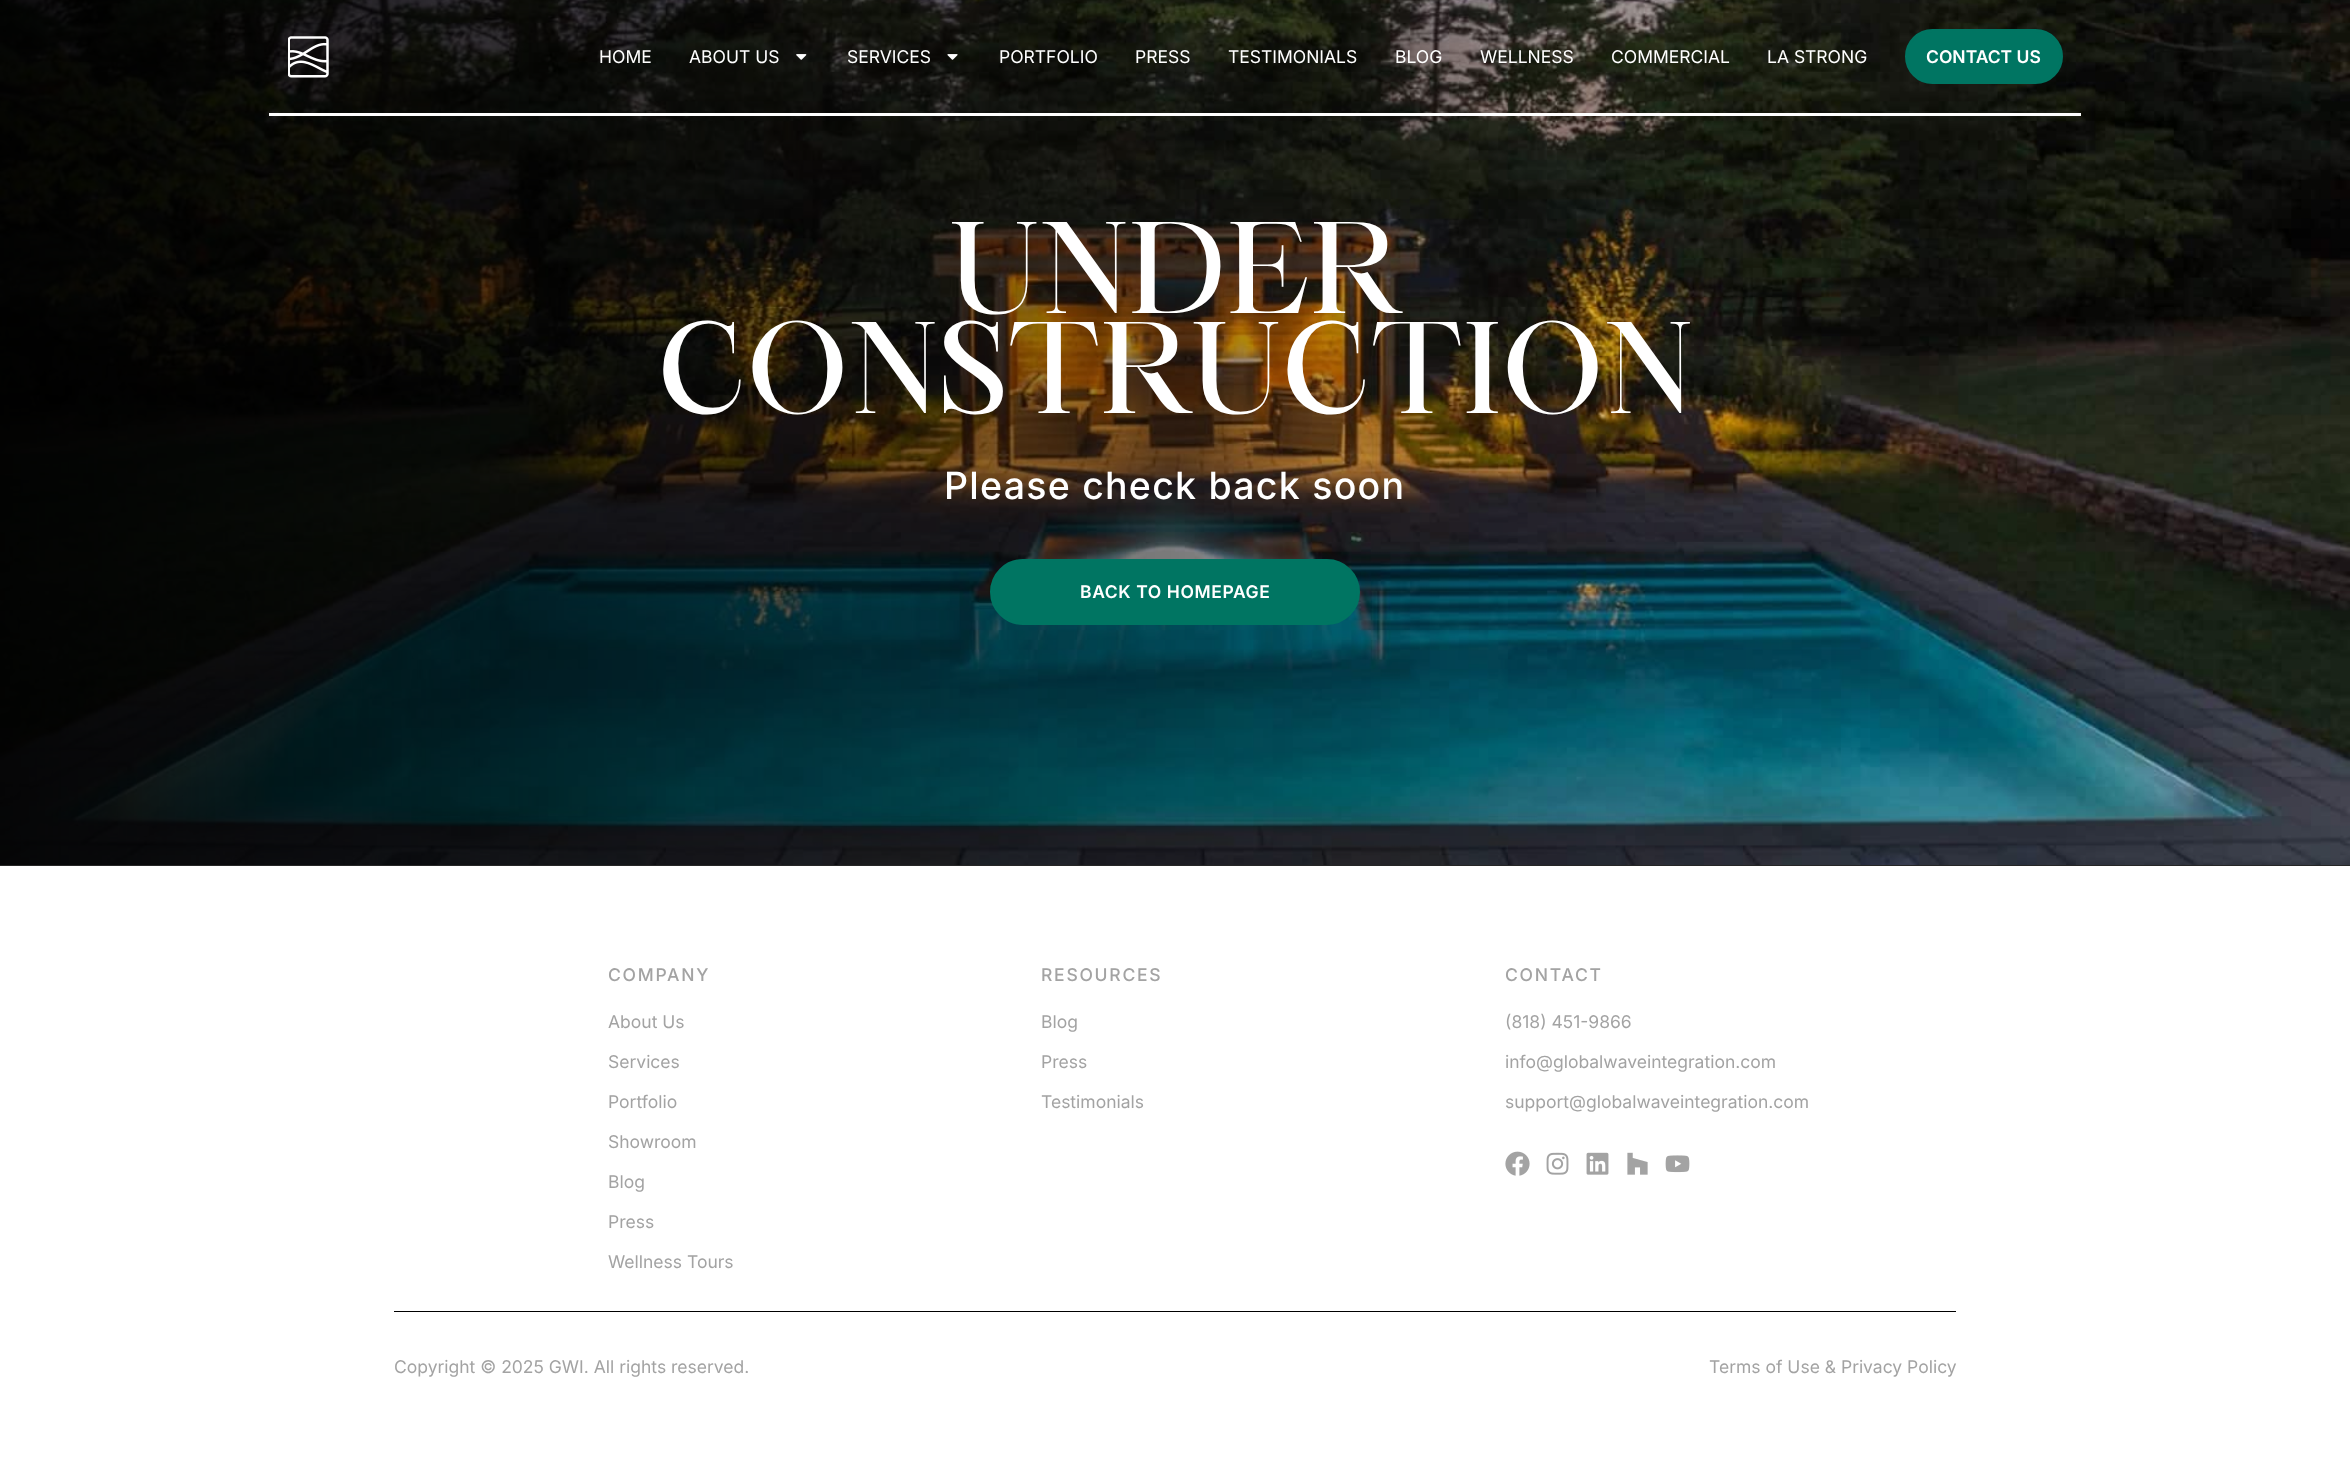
<svg xmlns="http://www.w3.org/2000/svg" width="2350" height="1466" viewBox="0 0 2350 1466">
  <rect width="100%" height="100%" fill="#fff"/>
  <image x="0" y="0" width="2350" height="865" href="img/4.png"/>
  <path d="M269 113h1812v3H269z" fill="#fff"/>
  <image x="288" y="36" width="41" height="42" href="img/1.png"/>
  <image x="796" y="54" width="11" height="6" href="img/2.png"/>
  <image x="947" y="54" width="11" height="6" href="img/3.png"/>
  <rect x="1906.5" y="30.5" width="155" height="52" rx="26" fill="#007562" stroke="#007562" stroke-width="3"/>
  <rect x="991.5" y="560.5" width="367" height="63" rx="31.5" fill="#007562" stroke="#007562" stroke-width="3"/>
  <path d="M0 865h2350v1H0z" fill="#262626"/>
  <image x="1505" y="1151" width="25" height="25" href="img/5.png"/>
  <image x="1546" y="1152" width="23" height="23" href="img/6.png"/>
  <image x="1586" y="1152" width="23" height="23" href="img/7.png"/>
  <image x="1627" y="1152" width="21" height="23" href="img/8.png"/>
  <image x="1665" y="1155" width="25" height="18" href="img/9.png"/>
  <path d="M394 1311h1562v1H394z" fill="#000"/>
  <g font-family="Inter" font-size="17.5" fill="#fff">
    <text x="599" y="63">HOME</text>
    <text x="689" y="63">ABOUT US</text>
    <text x="847" y="63">SERVICES</text>
    <text x="999" y="63">PORTFOLIO</text>
    <text x="1135" y="63">PRESS</text>
    <text x="1228" y="63">TESTIMONIALS</text>
    <text x="1395" y="63">BLOG</text>
    <text x="1480" y="63">WELLNESS</text>
    <text x="1611" y="63">COMMERCIAL</text>
    <text x="1767" y="63">LA STRONG</text>
  </g>
  <text x="1926" y="63" font-family="Inter" font-size="17.5" font-weight="600" fill="#fff">CONTACT US</text>
  <g font-family="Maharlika" font-size="125" fill="#fff">
    <text x="947" y="313">UNDER</text>
    <text x="657" y="413">CONSTRUCTION</text>
  </g>
  <text x="944" y="499" font-family="Inter" font-size="37.5" font-weight="500" letter-spacing="1.25" fill="#fff">Please check back soon</text>
  <text x="1080" y="598" font-family="Inter" font-size="17.5" font-weight="600" letter-spacing="0.6" fill="#fff">BACK TO HOMEPAGE</text>
  <text x="608" y="981" font-family="Inter" font-size="17.5" font-weight="500" letter-spacing="1.75" fill="#a3a3a3">COMPANY</text>
  <g font-family="Inter" font-size="17.5" fill="#a3a3a3">
    <text x="608" y="1028">About Us</text>
    <text x="608" y="1068">Services</text>
    <text x="608" y="1108">Portfolio</text>
    <text x="608" y="1148">Showroom</text>
    <text x="608" y="1188">Blog</text>
    <text x="608" y="1228">Press</text>
    <text x="608" y="1268">Wellness Tours</text>
  </g>
  <text x="1041" y="981" font-family="Inter" font-size="17.5" font-weight="500" letter-spacing="1.75" fill="#a3a3a3">RESOURCES</text>
  <g font-family="Inter" font-size="17.5" fill="#a3a3a3">
    <text x="1041" y="1028">Blog</text>
    <text x="1041" y="1068">Press</text>
    <text x="1041" y="1108">Testimonials</text>
  </g>
  <text x="1505" y="981" font-family="Inter" font-size="17.5" font-weight="500" letter-spacing="1.75" fill="#a3a3a3">CONTACT</text>
  <g font-family="Inter" font-size="17.5" fill="#a3a3a3">
    <text x="1505" y="1028">(818) 451-9866</text>
    <text x="1505" y="1068">info@globalwaveintegration.com</text>
    <text x="1505" y="1108">support@globalwaveintegration.com</text>
    <text x="394" y="1373">Copyright © 2025 GWI. All rights reserved.</text>
    <text x="1709" y="1373">Terms of Use &amp; Privacy Policy</text>
  </g>
</svg>
